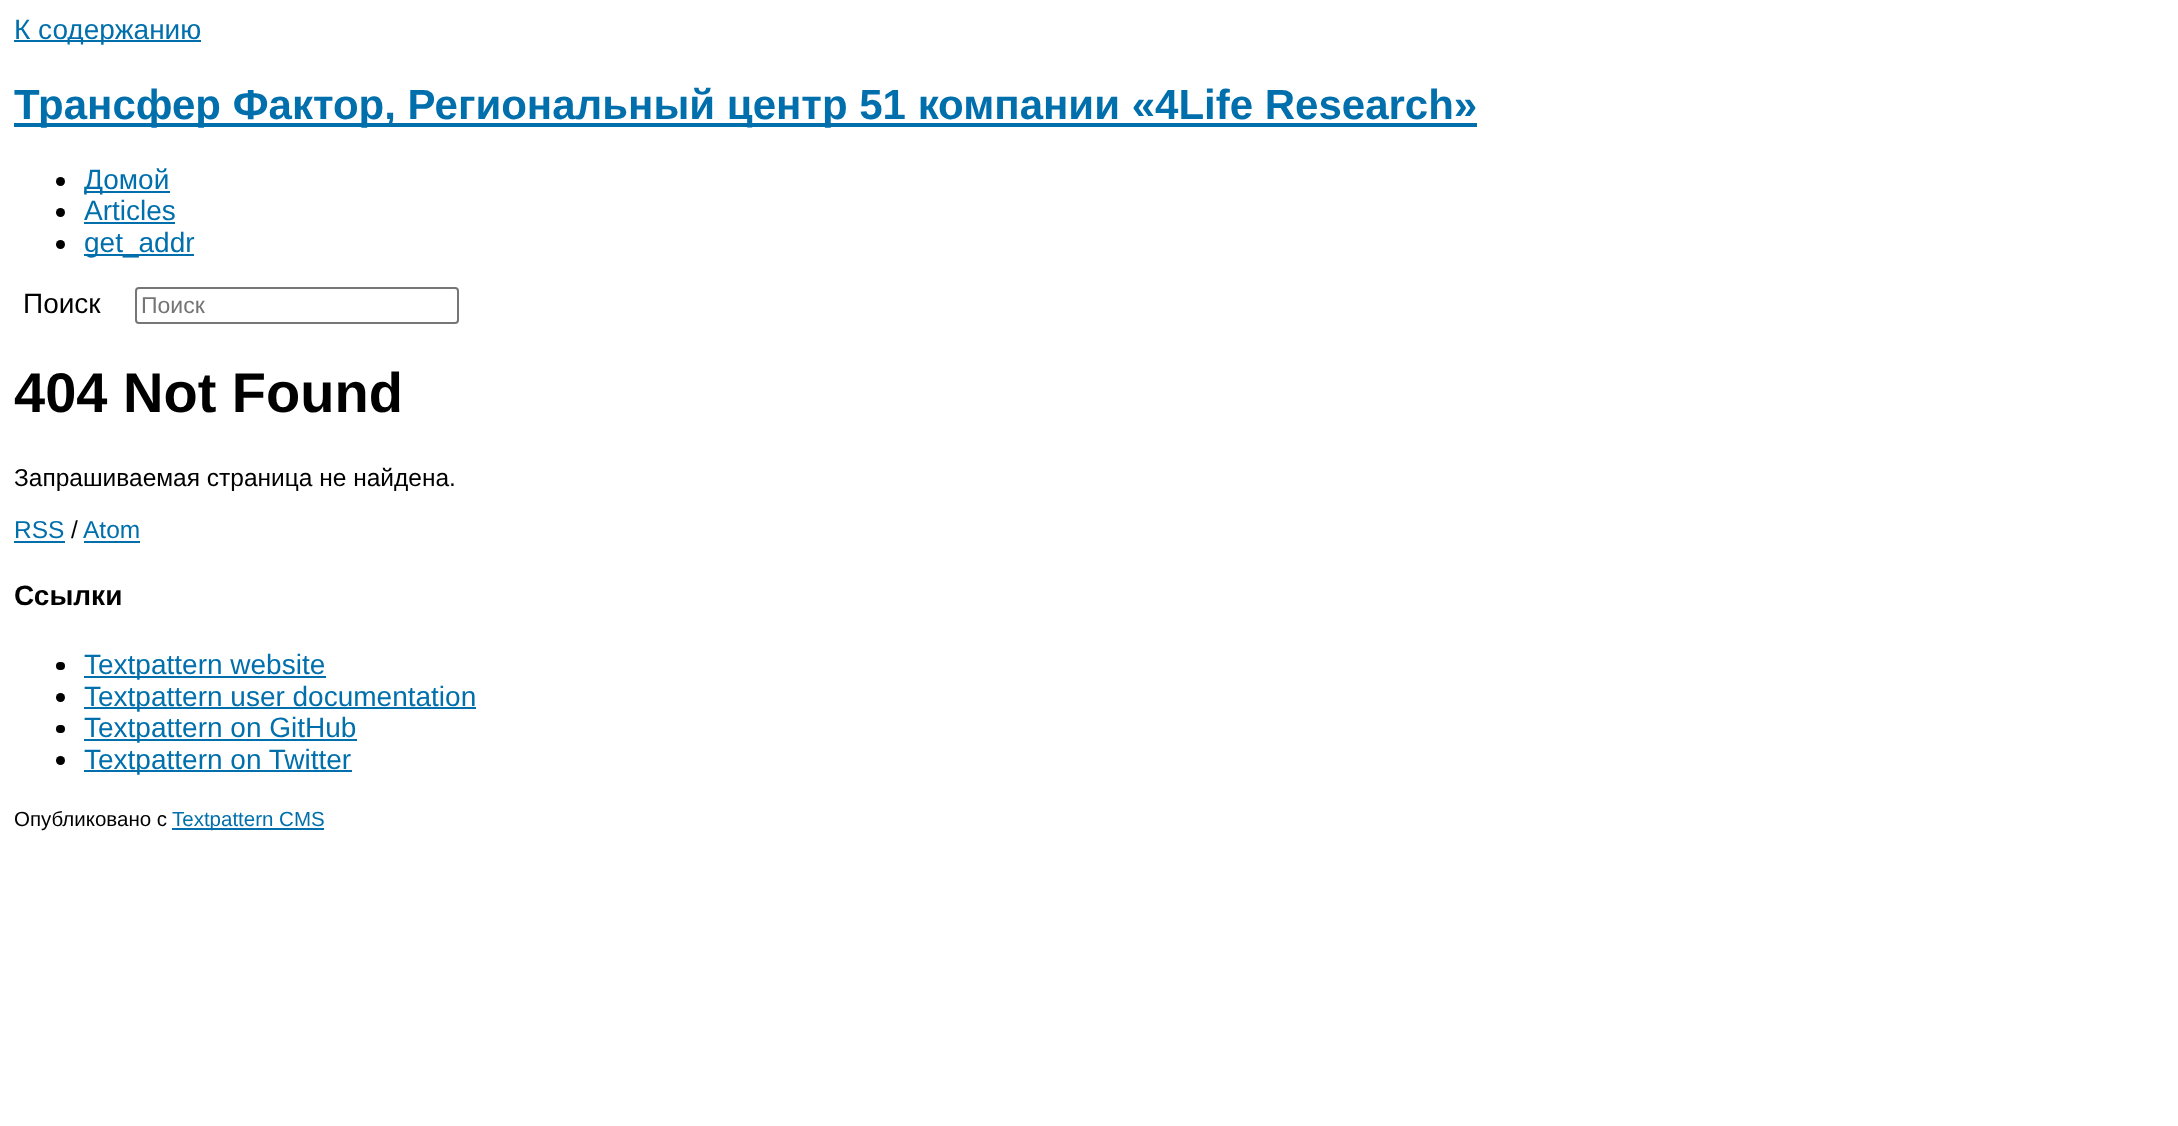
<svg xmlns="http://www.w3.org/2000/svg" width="2178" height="1126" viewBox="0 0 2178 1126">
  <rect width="100%" height="100%" fill="#fff"/>
  <path d="M14 40h187v2H14z" fill="#006fac"/>
  <path d="M14 123h1463v4H14z" fill="#006fac"/>
  <circle cx="60.5" cy="181.5" r="4.5" fill="#000"/>
  <path d="M84 191h86v2H84z" fill="#006fac"/>
  <circle cx="60.5" cy="212.5" r="4.5" fill="#000"/>
  <path d="M84 222h91v2H84z" fill="#006fac"/>
  <circle cx="60.5" cy="244.5" r="4.5" fill="#000"/>
  <path d="M84 254h110v2H84z" fill="#006fac"/>
  <rect x="136" y="288" width="322" height="35" rx="3" fill="none" stroke="#767676" stroke-width="2"/>
  <path d="M14 541h51v2H14z" fill="#006fac"/>
  <path d="M84 541h56v2H84z" fill="#006fac"/>
  <rect x="56" y="662" width="9" height="8" rx="4" fill="#000"/>
  <path d="M84 676h242v2H84z" fill="#006fac"/>
  <circle cx="60.5" cy="697.5" r="4.5" fill="#000"/>
  <path d="M84 707h392v2H84z" fill="#006fac"/>
  <rect x="56" y="725" width="9" height="8" rx="4" fill="#000"/>
  <path d="M84 739h273v2H84z" fill="#006fac"/>
  <circle cx="60.5" cy="760.5" r="4.5" fill="#000"/>
  <path d="M84 770h268v2H84z" fill="#006fac"/>
  <path d="M172 828h152v2H172z" fill="#006fac"/>
  <text x="14" y="39" font-family="Liberation Sans" font-size="28" fill="#006fac">К содержанию</text>
  <text x="14" y="119" font-family="Liberation Sans" font-size="42" font-weight="bold" fill="#006fac">Трансфер Фактор, Региональный центр 51 компании «4Life Research»</text>
  <g font-family="Liberation Sans" font-size="28" fill="#006fac">
    <text x="84" y="189">Домой</text>
    <text x="84" y="220">Articles</text>
    <text x="84" y="252">get_addr</text>
  </g>
  <text x="23" y="313" font-family="Liberation Sans" font-size="28" fill="#000">Поиск</text>
  <text x="141" y="313" font-family="Liberation Sans" font-size="23" fill="#757575">Поиск</text>
  <text x="14" y="412" font-family="Liberation Sans" font-size="56" font-weight="bold" fill="#000">404 Not Found</text>
  <text x="14" y="486" font-family="Liberation Sans" font-size="24.5" fill="#000">Запрашиваемая страница не найдена.</text>
  <text x="14" y="538" font-family="Liberation Sans" font-size="24.5" fill="#006fac">RSS</text>
  <text x="71" y="538" font-family="Liberation Sans" font-size="24.5" fill="#000">/</text>
  <text x="83" y="538" font-family="Liberation Sans" font-size="24.5" fill="#006fac">Atom</text>
  <text x="14" y="605" font-family="Liberation Sans" font-size="28" font-weight="bold" fill="#000">Ссылки</text>
  <g font-family="Liberation Sans" font-size="28" fill="#006fac">
    <text x="84" y="674">Textpattern website</text>
    <text x="84" y="706">Textpattern user documentation</text>
    <text x="84" y="737">Textpattern on GitHub</text>
    <text x="84" y="769">Textpattern on Twitter</text>
  </g>
  <text x="14" y="826" font-family="Liberation Sans" font-size="20.5" fill="#000">Опубликовано с</text>
  <text x="172" y="826" font-family="Liberation Sans" font-size="20.5" fill="#006fac">Textpattern CMS</text>
</svg>
